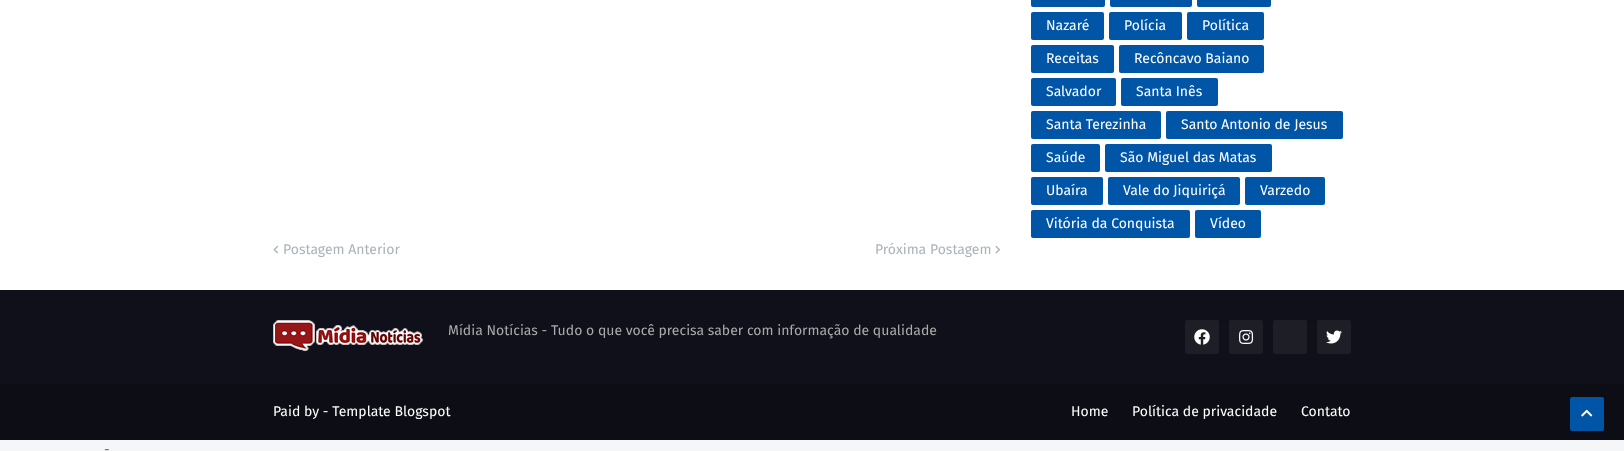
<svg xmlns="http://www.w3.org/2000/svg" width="1624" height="451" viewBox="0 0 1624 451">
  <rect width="100%" height="100%" fill="#f5f6f7"/>
  <path d="M0 0h1624v290H0z" fill="#fff"/>
  <rect x="1031" y="-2" width="74" height="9" rx="2" fill="#0055a6"/>
  <rect x="1110" y="-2" width="82" height="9" rx="2" fill="#0055a6"/>
  <rect x="1197" y="-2" width="74" height="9" rx="2" fill="#0055a6"/>
  <rect x="1031" y="12" width="73" height="28" rx="2" fill="#0055a6"/>
  <rect x="1109" y="12" width="73" height="28" rx="2" fill="#0055a6"/>
  <rect x="1187" y="12" width="77" height="28" rx="2" fill="#0055a6"/>
  <rect x="1031" y="45" width="83" height="28" rx="2" fill="#0055a6"/>
  <rect x="1119" y="45" width="145" height="28" rx="2" fill="#0055a6"/>
  <rect x="1031" y="78" width="85" height="28" rx="2" fill="#0055a6"/>
  <rect x="1121" y="78" width="97" height="28" rx="2" fill="#0055a6"/>
  <rect x="1031" y="111" width="130" height="28" rx="2" fill="#0055a6"/>
  <rect x="1166" y="111" width="177" height="28" rx="2" fill="#0055a6"/>
  <rect x="1031" y="144" width="69" height="28" rx="2" fill="#0055a6"/>
  <rect x="1105" y="144" width="167" height="28" rx="2" fill="#0055a6"/>
  <rect x="1031" y="177" width="72" height="28" rx="2" fill="#0055a6"/>
  <rect x="1108" y="177" width="132" height="28" rx="2" fill="#0055a6"/>
  <rect x="1245" y="177" width="80" height="28" rx="2" fill="#0055a6"/>
  <rect x="1031" y="210" width="159" height="28" rx="2" fill="#0055a6"/>
  <rect x="1195" y="210" width="66" height="28" rx="2" fill="#0055a6"/>
  <image x="273" y="245" width="6" height="9" href="img/1.png"/>
  <image x="995" y="245" width="6" height="9" href="img/2.png"/>
  <path d="M0 290h1624v94H0z" fill="#10101a"/>
  <image x="273" y="320" width="150" height="31" href="img/3.png"/>
  <rect x="1185" y="320" width="34" height="34" rx="2" fill="#1e1e27"/>
  <image x="1194" y="329" width="16" height="16" href="img/4.png"/>
  <rect x="1229" y="320" width="34" height="34" rx="2" fill="#1e1e27"/>
  <image x="1239" y="330" width="15" height="14" href="img/5.png"/>
  <rect x="1273" y="320" width="34" height="34" rx="2" fill="#1e1e27"/>
  <rect x="1317" y="320" width="34" height="34" rx="2" fill="#1e1e27"/>
  <image x="1326" y="330" width="16" height="14" href="img/6.png"/>
  <path d="M0 384h1624v56H0z" fill="#0d0d15"/>
  <rect x="1570" y="397" width="34" height="34" rx="2" fill="#0055a6"/>
  <image x="1581" y="409" width="12" height="8" href="img/7.png"/>
  <g font-family="Fira Sans" font-size="14" fill="#fff">
    <text x="1046" y="30">Nazaré</text>
    <text x="1124" y="30">Polícia</text>
    <text x="1202" y="30">Política</text>
    <text x="1046" y="63">Receitas</text>
    <text x="1134" y="63">Recôncavo Baiano</text>
    <text x="1046" y="96">Salvador</text>
    <text x="1136" y="96">Santa Inês</text>
    <text x="1046" y="129">Santa Terezinha</text>
    <text x="1181" y="129">Santo Antonio de Jesus</text>
    <text x="1046" y="162">Saúde</text>
    <text x="1120" y="162">São Miguel das Matas</text>
    <text x="1046" y="195">Ubaíra</text>
    <text x="1123" y="195">Vale do Jiquiriçá</text>
    <text x="1260" y="195">Varzedo</text>
    <text x="1046" y="228">Vitória da Conquista</text>
    <text x="1210" y="228">Vídeo</text>
  </g>
  <g font-family="Fira Sans" font-size="14" fill="#a9b4ba">
    <text x="283" y="254">Postagem Anterior</text>
    <text x="875" y="254">Próxima Postagem</text>
  </g>
  <text x="448" y="335" font-family="Fira Sans" font-size="14" fill="#aaa">Mídia Notícias - Tudo o que você precisa saber com informação de qualidade</text>
  <g font-family="Fira Sans" font-size="14" fill="#fff">
    <text x="273" y="416">Paid by - Template Blogspot</text>
    <text x="1071" y="416">Home</text>
    <text x="1132" y="416">Política de privacidade</text>
    <text x="1301" y="416">Contato</text>
  </g>
  <text x="104" y="454" font-family="Fira Sans" font-size="14" fill="#5b6c77">-</text>
</svg>
